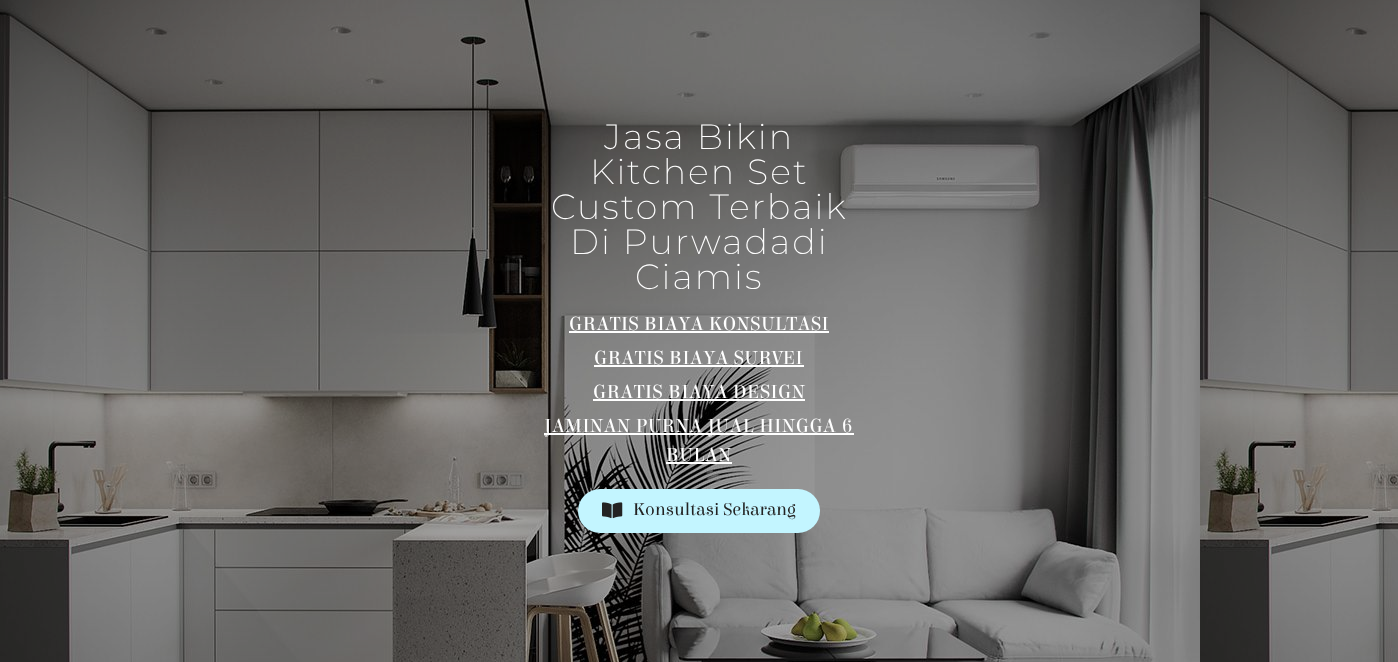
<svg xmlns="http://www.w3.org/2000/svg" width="1398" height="662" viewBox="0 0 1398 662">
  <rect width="100%" height="100%" fill="#fff"/>
  <image x="0" y="0" width="1398" height="662" href="img/1.png"/>
  <path d="M569 331h260v2H569z" fill="#fff"/>
  <path d="M594 365h210v2H594z" fill="#fff"/>
  <path d="M593 399h212v2H593z" fill="#fff"/>
  <path d="M544 433h310v2H544z" fill="#fff"/>
  <path d="M666 462h66v2H666z" fill="#fff"/>
  <rect x="578" y="489" width="242" height="44" rx="22" fill="#c3f5ff"/>
  <image x="602" y="502" width="21" height="17" href="img/2.png"/>
  <g font-family="Montserrat" font-size="35" font-weight="200" letter-spacing="2" fill="#fff">
    <text x="604" y="149">Jasa Bikin</text>
    <text x="590" y="184">Kitchen Set</text>
    <text x="551" y="219">Custom Terbaik</text>
    <text x="570" y="254">Di Purwadadi</text>
    <text x="635" y="289">Ciamis</text>
  </g>
  <g font-family="Elsie" font-size="20" letter-spacing="0.5" fill="#fff">
    <text x="569" y="330">GRATIS BIAYA KONSULTASI</text>
    <text x="594" y="364">GRATIS BIAYA SURVEI</text>
    <text x="593" y="398">GRATIS BIAYA DESIGN</text>
    <text x="544" y="432">JAMINAN PURNA JUAL HINGGA 6</text>
    <text x="666" y="461">BULAN</text>
  </g>
  <text x="633" y="515" font-family="Elsie" font-size="18" fill="#232323">Konsultasi Sekarang</text>
</svg>
